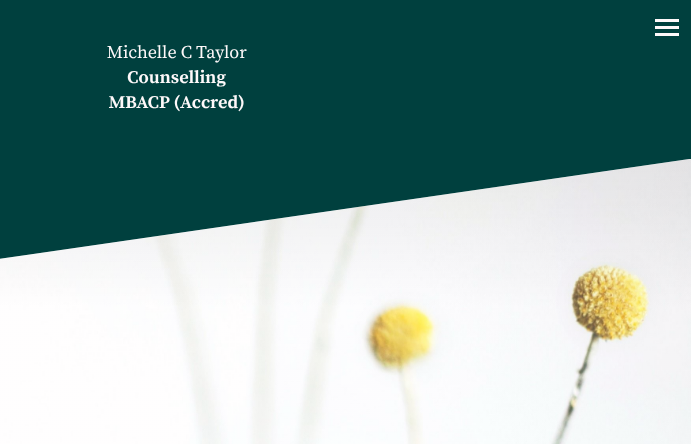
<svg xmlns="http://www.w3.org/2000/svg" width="691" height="444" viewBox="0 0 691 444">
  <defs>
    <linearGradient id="g1" gradientUnits="userSpaceOnUse" x1="346" y1="159" x2="346" y2="309"><stop offset="0" stop-color="#000" stop-opacity="0.07"/><stop offset="1" stop-color="#000" stop-opacity="0"/></linearGradient>
  </defs>
  <rect width="100%" height="100%" fill="#00403e"/>
  <path d="M655 19h24v3H655z" fill="#fef9fa"/>
  <path d="M655 26h24v3H655z" fill="#fef9fa"/>
  <path d="M655 33h24v3H655z" fill="#fef9fa"/>
  <image x="107" y="45" width="140" height="67" href="img/1.png"/>
  <image x="0" y="159" width="691" height="285" href="img/2.png"/>
  <path d="M0 259V309H691V159H690Z" fill="url(#g1)"/>
</svg>
